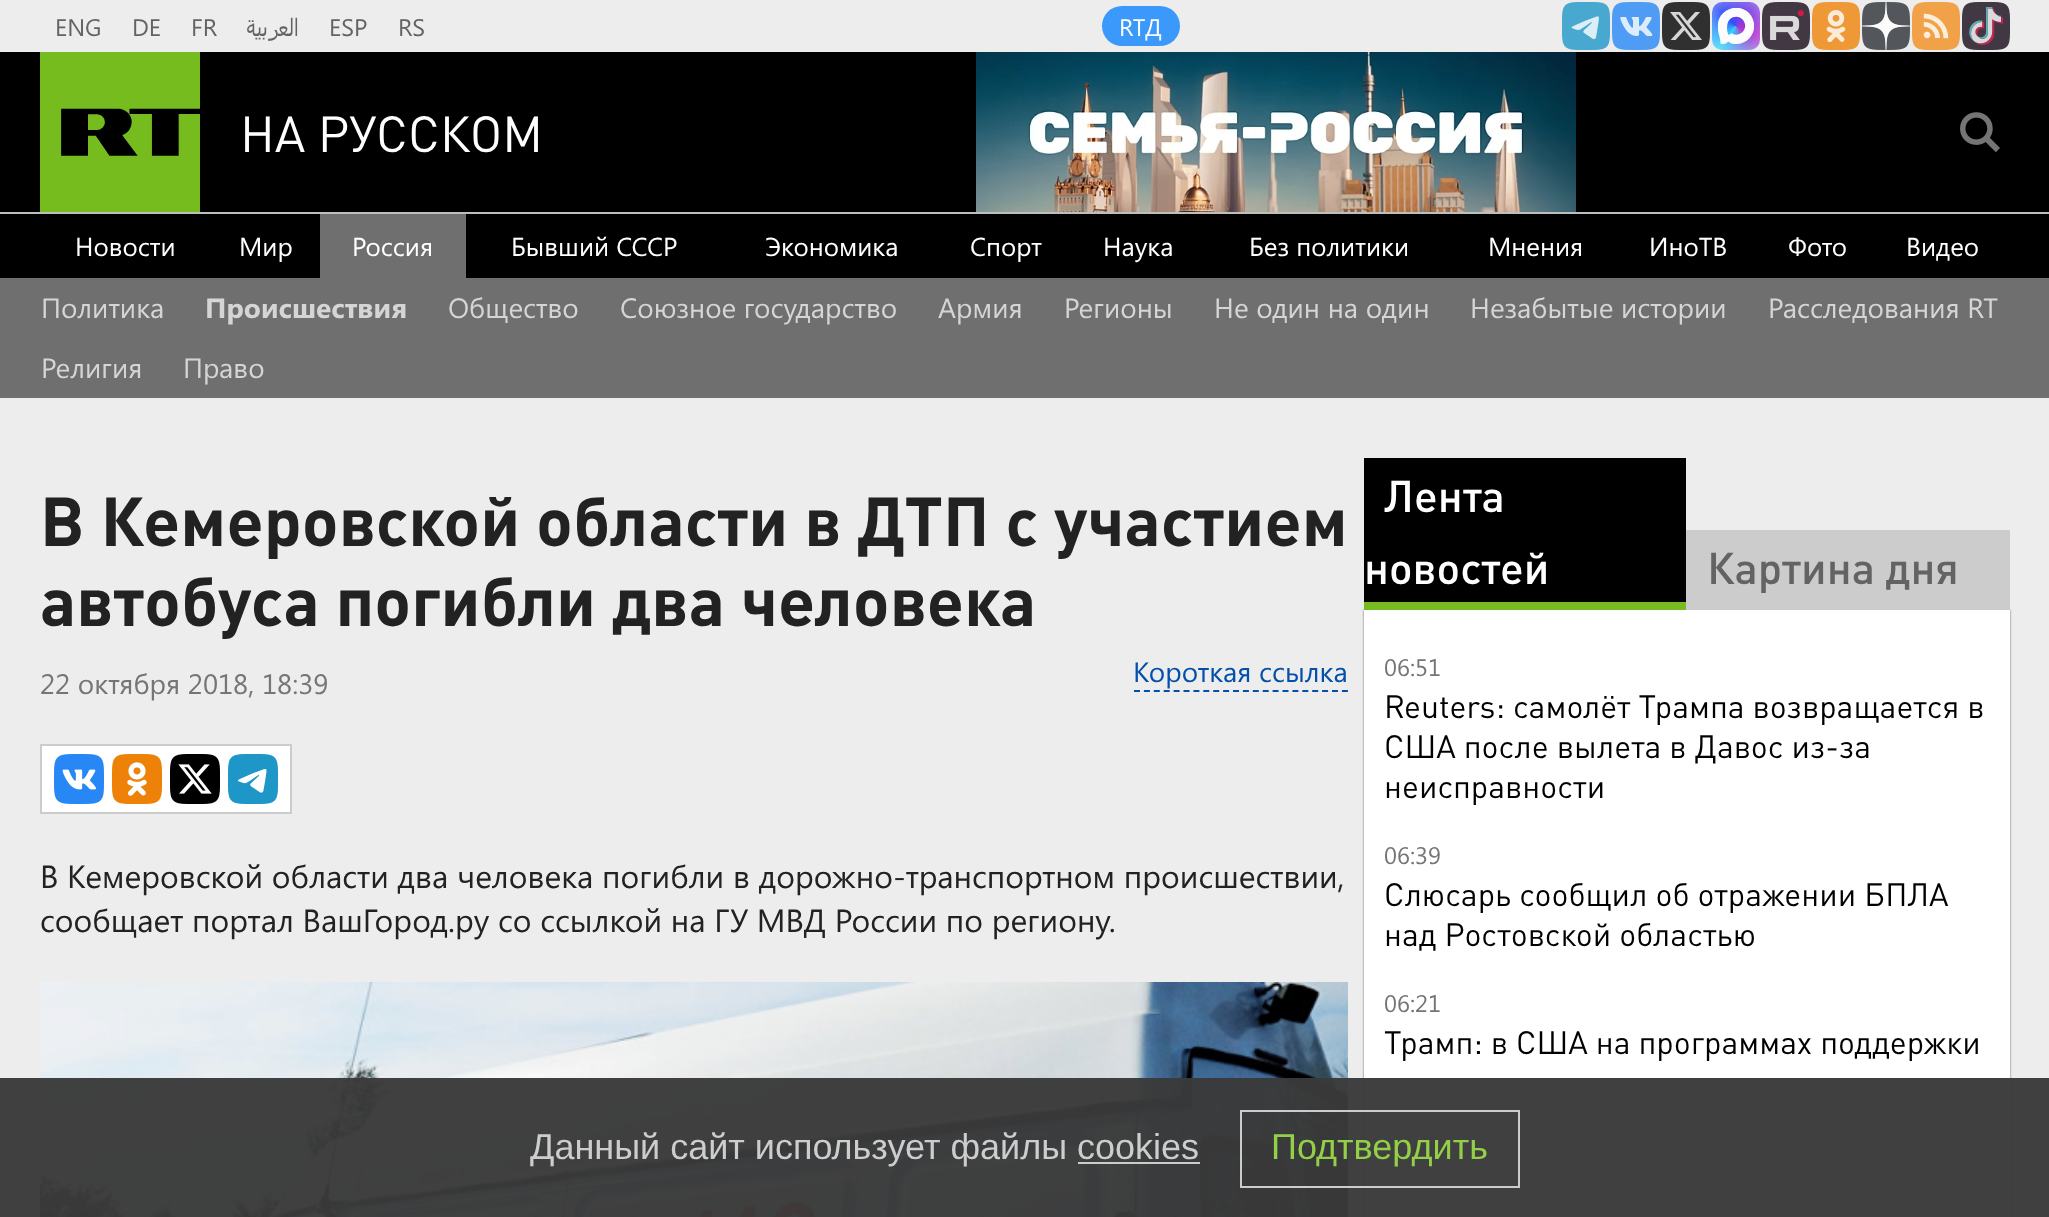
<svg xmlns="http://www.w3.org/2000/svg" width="2049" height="1217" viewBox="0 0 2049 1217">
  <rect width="100%" height="100%" fill="#000"/>
  <path d="M0 0h2049v52H0z" fill="#ededed"/>
  <rect x="1102" y="6" width="78" height="40" rx="20" fill="#3b99fc"/>
  <image x="1562" y="2" width="48" height="48" href="img/1.png"/>
  <image x="1612" y="2" width="48" height="48" href="img/2.png"/>
  <image x="1662" y="2" width="48" height="48" href="img/3.png"/>
  <image x="1712" y="2" width="48" height="48" href="img/4.png"/>
  <image x="1762" y="2" width="48" height="48" href="img/5.png"/>
  <image x="1812" y="2" width="48" height="48" href="img/6.png"/>
  <image x="1862" y="2" width="48" height="48" href="img/7.png"/>
  <image x="1912" y="2" width="48" height="48" href="img/8.png"/>
  <image x="1962" y="2" width="48" height="48" href="img/9.png"/>
  <path d="M0 212h2049v2H0z" fill="#bebebe"/>
  <path d="M40 52h160v160H40z" fill="#77bc1f"/>
  <image x="61" y="108" width="139" height="48" href="img/10.png"/>
  <image x="976" y="52" width="600" height="160" href="img/11.png"/>
  <image x="1960" y="112" width="40" height="41" href="img/12.png"/>
  <path d="M320 214h146v64H320z" fill="#6f6f6f"/>
  <path d="M0 278h2049v120H0z" fill="#6f6f6f"/>
  <path d="M0 398h2049v819H0z" fill="#ededed"/>
  <path d="M1134 691H1348" fill="none" stroke="#044faa" stroke-width="2" stroke-dasharray="6 3.9"/>
  <path d="M41 745h250v68H41z" fill="#fff" stroke="#ccc" stroke-width="2"/>
  <image x="54" y="754" width="50" height="50" href="img/13.png"/>
  <image x="112" y="754" width="50" height="50" href="img/14.png"/>
  <image x="170" y="754" width="50" height="50" href="img/15.png"/>
  <image x="228" y="754" width="50" height="50" href="img/16.png"/>
  <image x="40" y="982" width="1308" height="235" href="img/17.png"/>
  <path d="M1364 458h322v144H1364z" fill="#000"/>
  <path d="M1364 610h646v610H1364z" fill="#666" filter="blur(1px)"/>
  <path d="M1364 602h322v8H1364z" fill="#77bc1f"/>
  <path d="M1686 530h324v80H1686z" fill="#ccc"/>
  <path d="M1364 610h646v607H1364z" fill="#fff"/>
  <path d="M0 1078h2049v139H0z" fill="#3a3a3af7"/>
  <path d="M1241 1111h278v76H1241z" fill="none" stroke="#d1d1d1f7" stroke-width="2"/>
  <g font-family="Segoe UI" font-size="24" fill="#636363">
    <text x="55" y="36">ENG</text>
    <text x="132" y="36">DE</text>
    <text x="191" y="36">FR</text>
  </g>
  <text x="299" y="36" font-family="Segoe UI" font-size="24" direction="rtl" fill="#636363">العربية</text>
  <g font-family="Segoe UI" font-size="24" fill="#636363">
    <text x="329" y="36">ESP</text>
    <text x="398" y="36">RS</text>
  </g>
  <text x="1119" y="36" font-family="Segoe UI" font-size="24" fill="#fff">RTД</text>
  <text x="240" y="152" font-family="DIN" font-size="50" fill="#fff">НА РУССКОМ</text>
  <g font-family="Segoe UI" font-size="26" fill="#fff">
    <text x="75" y="256">Новости</text>
    <text x="239" y="256">Мир</text>
    <text x="352" y="256">Россия</text>
    <text x="511" y="256">Бывший СССР</text>
    <text x="765" y="256">Экономика</text>
    <text x="970" y="256">Спорт</text>
    <text x="1103" y="256">Наука</text>
    <text x="1249" y="256">Без политики</text>
    <text x="1488" y="256">Мнения</text>
    <text x="1649" y="256">ИноТВ</text>
    <text x="1788" y="256">Фото</text>
    <text x="1906" y="256">Видео</text>
  </g>
  <text x="41" y="318" font-family="Segoe UI" font-size="28" fill="#d5d5d5">Политика</text>
  <text x="205" y="318" font-family="Segoe UI" font-size="28" font-weight="bold" fill="#d5d5d5">Происшествия</text>
  <g font-family="Segoe UI" font-size="28" fill="#d5d5d5">
    <text x="448" y="318">Общество</text>
    <text x="620" y="318">Союзное государство</text>
    <text x="938" y="318">Армия</text>
    <text x="1064" y="318">Регионы</text>
    <text x="1214" y="318">Не один на один</text>
    <text x="1470" y="318">Незабытые истории</text>
    <text x="1768" y="318">Расследования RT</text>
    <text x="41" y="378">Религия</text>
    <text x="183" y="378">Право</text>
  </g>
  <g font-family="DIN" font-size="68" font-weight="bold" fill="#222">
    <text x="40" y="546">В Кемеровской области в ДТП с участием</text>
    <text x="40" y="626">автобуса погибли два человека</text>
  </g>
  <text x="40" y="694" font-family="Segoe UI" font-size="28" fill="#757575">22 октября 2018, 18:39</text>
  <text x="1133" y="682" font-family="Segoe UI" font-size="28" fill="#044faa">Короткая ссылка</text>
  <g font-family="Segoe UI" font-size="32" fill="#222">
    <text x="40" y="888">В Кемеровской области два человека погибли в дорожно-транспортном происшествии,</text>
    <text x="40" y="932">сообщает портал ВашГород.ру со ссылкой на ГУ МВД России по региону.</text>
  </g>
  <g font-family="DIN" font-size="44" font-weight="500" fill="#fff">
    <text x="1384" y="512">Лента</text>
    <text x="1364" y="584">новостей</text>
  </g>
  <text x="1707" y="584" font-family="DIN" font-size="44" font-weight="500" fill="#636363">Картина дня</text>
  <text x="1384" y="676" font-family="Segoe UI" font-size="24" fill="#757575">06:51</text>
  <g font-family="DIN" font-size="32" fill="#000">
    <text x="1384" y="718">Reuters: самолёт Трампа возвращается в</text>
    <text x="1384" y="758">США после вылета в Давос из-за</text>
    <text x="1384" y="798">неисправности</text>
  </g>
  <text x="1384" y="864" font-family="Segoe UI" font-size="24" fill="#757575">06:39</text>
  <g font-family="DIN" font-size="32" fill="#000">
    <text x="1384" y="906">Слюсарь сообщил об отражении БПЛА</text>
    <text x="1384" y="946">над Ростовской областью</text>
  </g>
  <text x="1384" y="1012" font-family="Segoe UI" font-size="24" fill="#757575">06:21</text>
  <text x="1384" y="1054" font-family="DIN" font-size="32" fill="#000">Трамп: в США на программах поддержки</text>
  <text x="530" y="1159" font-family="Liberation Sans" font-size="36" fill="#cdcdcd">Данный сайт использует файлы cookies</text>
  <path d="M1078 1162h122v2H1078z" fill="#d1d1d1f7"/>
  <text x="1271" y="1159" font-family="Liberation Sans" font-size="36" fill="#93cf47">Подтвердить</text>
</svg>
